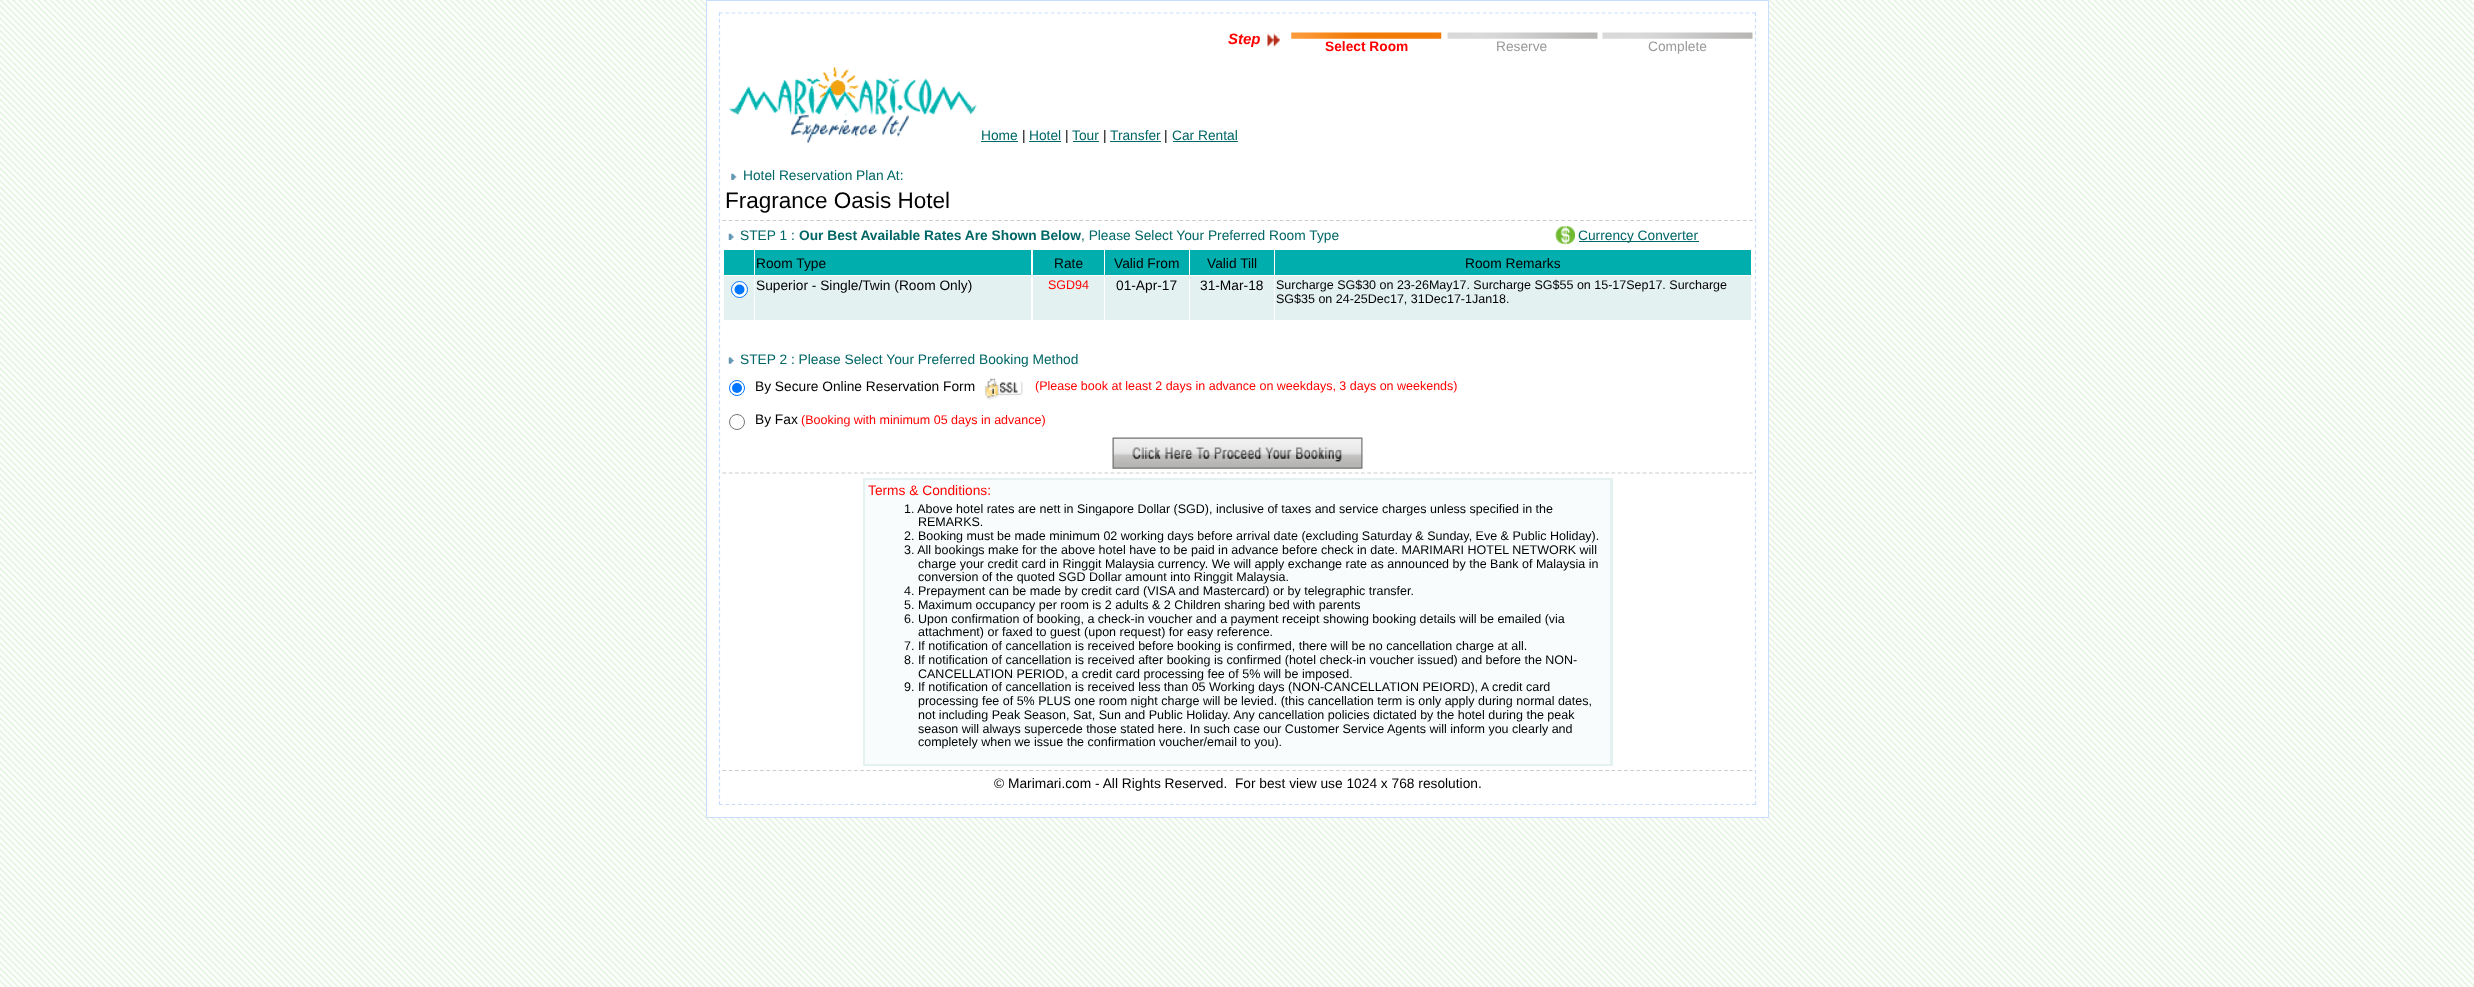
<svg xmlns="http://www.w3.org/2000/svg" width="2474" height="987" viewBox="0 0 2474 987">
  <rect width="100%" height="100%" fill="#fff"/>
  <image x="0" y="0" width="2474" height="987" href="img/1.png"/>
  <path d="M706.5 0.5h1062v817H706.5z" fill="#fff" stroke="#c7defe"/>
  <path d="M719 13H1756" fill="none" stroke="#c7defe" stroke-width="1.2" stroke-dasharray="3.75 2.51"/>
  <path d="M1755.5 12.5V805" fill="none" stroke="#c7defe" stroke-width="1.2" stroke-dasharray="3.75 2.51"/>
  <path d="M719 804.5H1756" fill="none" stroke="#c7defe" stroke-width="1.2" stroke-dasharray="3.75 2.51"/>
  <path d="M719.5 12.5V805" fill="none" stroke="#c7defe" stroke-width="1.2" stroke-dasharray="3.75 2.51"/>
  <image x="1267" y="32" width="13" height="15" href="img/2.png"/>
  <image x="1291" y="32" width="151" height="7" href="img/3.png"/>
  <image x="1447" y="32" width="151" height="7" href="img/4.png"/>
  <image x="1602" y="32" width="151" height="7" href="img/4.png"/>
  <image x="728" y="67" width="249" height="76" href="img/5.png"/>
  <path d="M981 141h37v1H981z" fill="#066"/>
  <path d="M1029 141h32v1H1029z" fill="#066"/>
  <path d="M1073 141h26v1H1073z" fill="#066"/>
  <path d="M1110 141h51v1H1110z" fill="#066"/>
  <path d="M1173 141h65v1H1173z" fill="#066"/>
  <image x="731" y="173" width="6" height="7" href="img/6.png"/>
  <path d="M722.5 220.5H1752.5" fill="none" stroke="#ccc" stroke-width="1.2" stroke-dasharray="3.75 2.51"/>
  <image x="728" y="233" width="6" height="7" href="img/7.png"/>
  <image x="1555" y="226" width="20" height="19" href="img/8.png"/>
  <path d="M1579 241h120v1H1579z" fill="#066"/>
  <path d="M724 250h30v25H724z" fill="#00aeae"/>
  <path d="M755 250h276v25H755z" fill="#00aeae"/>
  <path d="M1033 250h71v25H1033z" fill="#00aeae"/>
  <path d="M1105 250h84v25H1105z" fill="#00aeae"/>
  <path d="M1190 250h84v25H1190z" fill="#00aeae"/>
  <path d="M1275 250h476v25H1275z" fill="#00aeae"/>
  <path d="M724 276h30v44H724z" fill="#e4f1f1"/>
  <circle cx="739.5" cy="289.5" r="8" fill="#fff" stroke="#0075ff"/>
  <circle cx="739.5" cy="289.5" r="5" fill="#0075ff"/>
  <path d="M755 276h276v44H755z" fill="#e4f1f1"/>
  <path d="M1033 276h71v44H1033z" fill="#e4f1f1"/>
  <path d="M1105 276h84v44H1105z" fill="#e4f1f1"/>
  <path d="M1190 276h84v44H1190z" fill="#e4f1f1"/>
  <path d="M1275 276h476v44H1275z" fill="#e4f1f1"/>
  <image x="728" y="357" width="6" height="7" href="img/9.png"/>
  <circle cx="737" cy="388" r="7.5" fill="none" stroke="#0075ff"/>
  <circle cx="737" cy="388" r="5" fill="#0075ff"/>
  <image x="985" y="378" width="38" height="22" href="img/10.png"/>
  <circle cx="737" cy="422" r="7.5" fill="none" stroke="#767676"/>
  <image x="1112" y="437" width="251" height="32" href="img/11.png"/>
  <path d="M722.5 473H1752.5" fill="none" stroke="#ccc" stroke-width="1.2" stroke-dasharray="3.75 2.51"/>
  <path d="M863 478h750v288H863z" fill="#e4f1f1"/>
  <path d="M865 480h745v284H865z" fill="#f8fcfc"/>
  <path d="M722.5 770.5H1752.5" fill="none" stroke="#ccc" stroke-width="1.2" stroke-dasharray="3.75 2.51"/>
  <text x="1228" y="44" font-family="Liberation Sans" font-size="15" font-weight="bold" font-style="italic" fill="#f00">Step</text>
  <text x="1325" y="51" font-family="Liberation Sans" font-size="13.75" font-weight="bold" fill="#f00">Select Room</text>
  <g font-family="Liberation Sans" font-size="13.75" fill="#999">
    <text x="1496" y="51">Reserve</text>
    <text x="1648" y="51">Complete</text>
  </g>
  <text x="981" y="140" font-family="Liberation Sans" font-size="13.75" fill="#066">Home</text>
  <text x="1022" y="140" font-family="Liberation Sans" font-size="13.75" fill="#000">|</text>
  <text x="1029" y="140" font-family="Liberation Sans" font-size="13.75" fill="#066">Hotel</text>
  <text x="1065" y="140" font-family="Liberation Sans" font-size="13.75" fill="#000">|</text>
  <text x="1072" y="140" font-family="Liberation Sans" font-size="13.75" fill="#066">Tour</text>
  <text x="1103" y="140" font-family="Liberation Sans" font-size="13.75" fill="#000">|</text>
  <text x="1110" y="140" font-family="Liberation Sans" font-size="13.75" fill="#066">Transfer</text>
  <text x="1164" y="140" font-family="Liberation Sans" font-size="13.75" fill="#000">|</text>
  <g font-family="Liberation Sans" font-size="13.75" fill="#066">
    <text x="1172" y="140">Car Rental</text>
    <text x="743" y="180">Hotel Reservation Plan At:</text>
  </g>
  <text x="725" y="208" font-family="Liberation Sans" font-size="22.5" fill="#000">Fragrance Oasis Hotel</text>
  <text x="740" y="240" font-family="Liberation Sans" font-size="13.75" fill="#066">STEP 1 :</text>
  <text x="799" y="240" font-family="Liberation Sans" font-size="13.75" font-weight="bold" fill="#066">Our Best Available Rates Are Shown Below</text>
  <g font-family="Liberation Sans" font-size="13.75" fill="#066">
    <text x="1081" y="240">, Please Select Your Preferred Room Type</text>
    <text x="1578" y="240">Currency Converter</text>
  </g>
  <g font-family="Liberation Sans" font-size="13.75" fill="#000">
    <text x="756" y="268">Room Type</text>
    <text x="1054" y="268">Rate</text>
    <text x="1114" y="268">Valid From</text>
    <text x="1207" y="268">Valid Till</text>
    <text x="1465" y="268">Room Remarks</text>
    <text x="756" y="290">Superior - Single/Twin (Room Only)</text>
  </g>
  <text x="1048" y="289" font-family="Liberation Sans" font-size="12.5" fill="#f00">SGD94</text>
  <g font-family="Liberation Sans" font-size="13.75" fill="#000">
    <text x="1116" y="290">01-Apr-17</text>
    <text x="1200" y="290">31-Mar-18</text>
  </g>
  <g font-family="Liberation Sans" font-size="12.5" fill="#000">
    <text x="1276" y="289">Surcharge SG$30 on 23-26May17. Surcharge SG$55 on 15-17Sep17. Surcharge</text>
    <text x="1276" y="303">SG$35 on 24-25Dec17, 31Dec17-1Jan18.</text>
  </g>
  <text x="740" y="364" font-family="Liberation Sans" font-size="13.75" fill="#066">STEP 2 : Please Select Your Preferred Booking Method</text>
  <text x="755" y="391" font-family="Liberation Sans" font-size="13.75" fill="#000">By Secure Online Reservation Form</text>
  <text x="1035" y="390" font-family="Liberation Sans" font-size="12.5" fill="#f00">(Please book at least 2 days in advance on weekdays, 3 days on weekends)</text>
  <text x="755" y="424" font-family="Liberation Sans" font-size="13.75" fill="#000">By Fax</text>
  <text x="801" y="424" font-family="Liberation Sans" font-size="12.5" fill="#f00">(Booking with minimum 05 days in advance)</text>
  <text x="868" y="495" font-family="Liberation Sans" font-size="13.75" fill="#f00">Terms &amp; Conditions:</text>
  <g font-family="Liberation Sans" font-size="12.5" fill="#000">
    <text x="904" y="513">1. Above hotel rates are nett in Singapore Dollar (SGD), inclusive of taxes and service charges unless specified in the</text>
    <text x="918" y="526">REMARKS.</text>
    <text x="904" y="540">2. Booking must be made minimum 02 working days before arrival date (excluding Saturday &amp; Sunday, Eve &amp; Public Holiday).</text>
    <text x="904" y="554">3. All bookings make for the above hotel have to be paid in advance before check in date. MARIMARI HOTEL NETWORK will</text>
    <text x="918" y="568">charge your credit card in Ringgit Malaysia currency. We will apply exchange rate as announced by the Bank of Malaysia in</text>
    <text x="918" y="581">conversion of the quoted SGD Dollar amount into Ringgit Malaysia.</text>
    <text x="904" y="595">4. Prepayment can be made by credit card (VISA and Mastercard) or by telegraphic transfer.</text>
    <text x="904" y="609">5. Maximum occupancy per room is 2 adults &amp; 2 Children sharing bed with parents</text>
    <text x="904" y="623">6. Upon confirmation of booking, a check-in voucher and a payment receipt showing booking details will be emailed (via</text>
    <text x="918" y="636">attachment) or faxed to guest (upon request) for easy reference.</text>
    <text x="904" y="650">7. If notification of cancellation is received before booking is confirmed, there will be no cancellation charge at all.</text>
    <text x="904" y="664">8. If notification of cancellation is received after booking is confirmed (hotel check-in voucher issued) and before the NON-</text>
    <text x="918" y="678">CANCELLATION PERIOD, a credit card processing fee of 5% will be imposed.</text>
    <text x="904" y="691">9. If notification of cancellation is received less than 05 Working days (NON-CANCELLATION PEIORD), A credit card</text>
    <text x="918" y="705">processing fee of 5% PLUS one room night charge will be levied. (this cancellation term is only apply during normal dates,</text>
    <text x="918" y="719">not including Peak Season, Sat, Sun and Public Holiday. Any cancellation policies dictated by the hotel during the peak</text>
    <text x="918" y="733">season will always supercede those stated here. In such case our Customer Service Agents will inform you clearly and</text>
    <text x="918" y="746">completely when we issue the confirmation voucher/email to you).</text>
  </g>
  <text x="994" y="788" font-family="Liberation Sans" font-size="13.75" fill="#000" xml:space="preserve">© Marimari.com - All Rights Reserved.  For best view use 1024 x 768 resolution.</text>
</svg>
